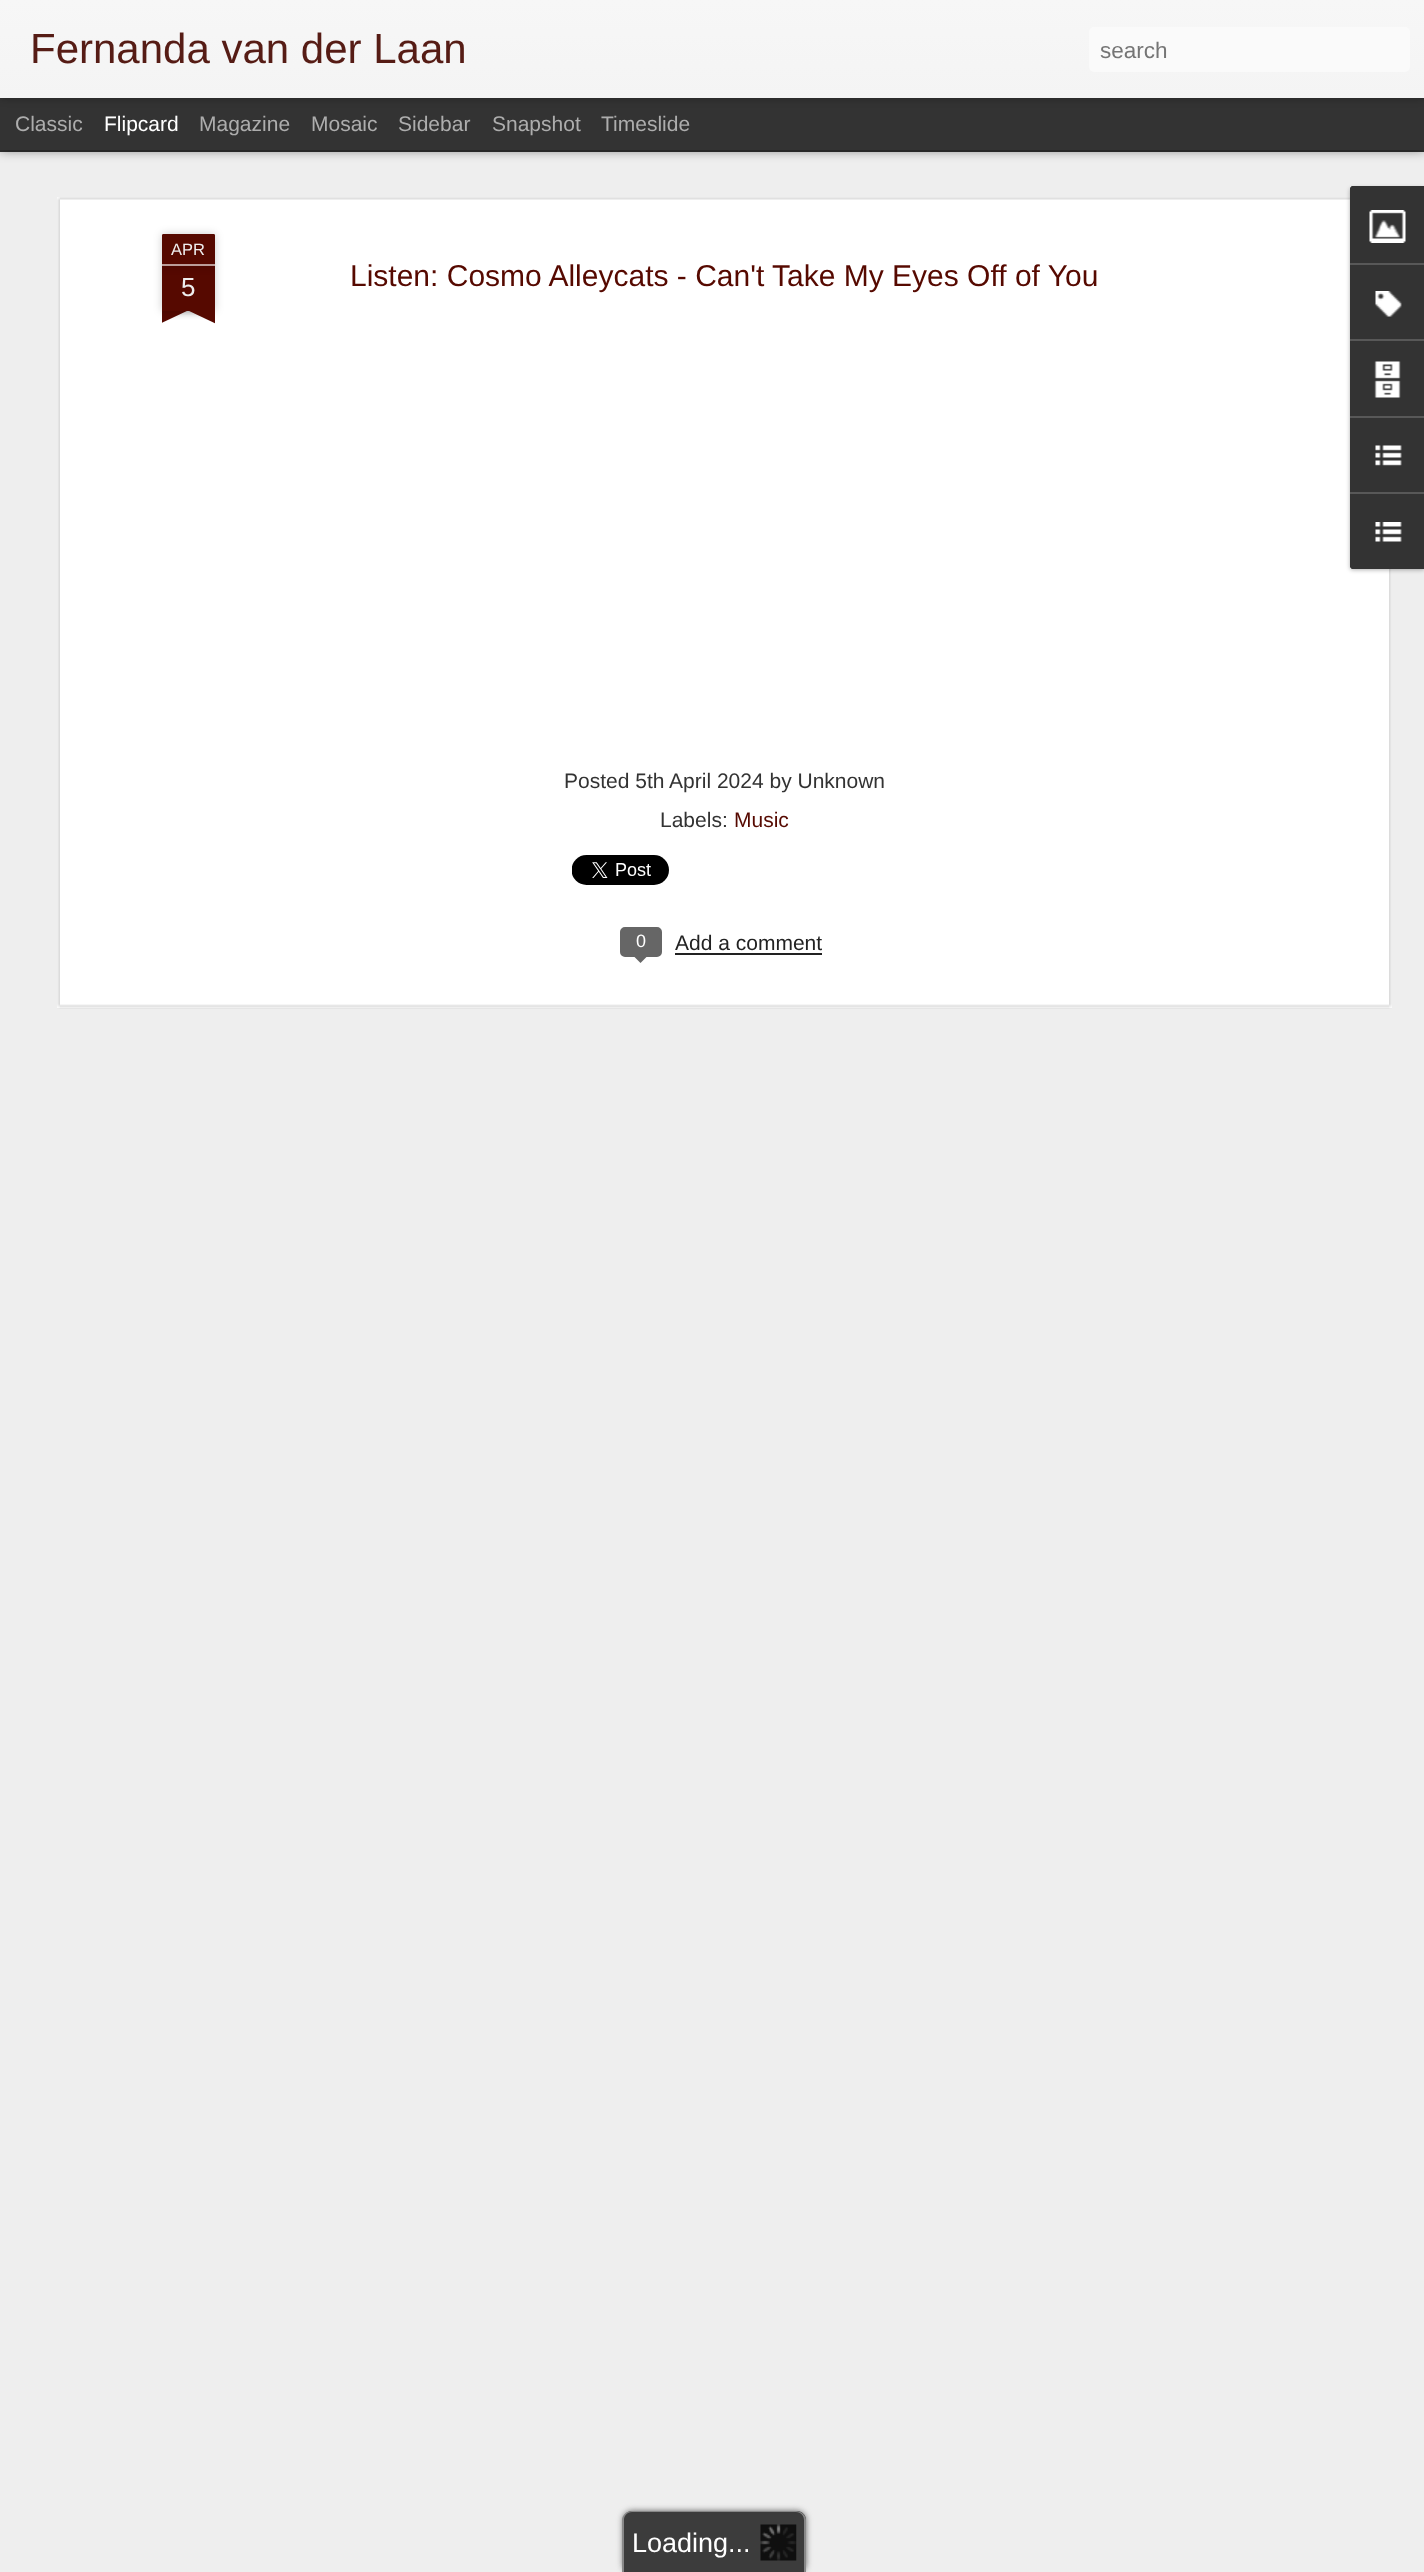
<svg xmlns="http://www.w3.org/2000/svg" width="1424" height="2572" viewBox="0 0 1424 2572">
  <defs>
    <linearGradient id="g1" gradientUnits="userSpaceOnUse" x1="0" y1="0" x2="0" y2="98"><stop offset="0" stop-color="#f7f7f7"/><stop offset="1" stop-color="#f4f4f4"/></linearGradient>
    <clipPath id="clip1"><path d="M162 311h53v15H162z"/></clipPath>
    <clipPath id="clip2"><path d="M162 311h53v15H162z"/></clipPath>
  </defs>
  <rect width="100%" height="100%" fill="#333"/>
  <path d="M0 152h1424v2420H0z" fill="#eee"/>
  <path d="M0 98h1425v52H0z" fill="#00000080" filter="blur(6px)"/>
  <path d="M0 98h1424v52H0z" fill="#333"/>
  <path d="M0 0h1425v98H0z" fill="#0000004d" filter="blur(4px)"/>
  <path d="M0 0h1424v98H0z" fill="url(#g1)"/>
  <rect x="1089" y="27" width="321" height="45" rx="5" fill="#fafafa"/>
  <path d="M57 197h1335v811H57z" fill="#fff"/>
  <image x="57" y="197" width="1335" height="812" href="img/1.png"/>
  <path d="M162 266h53v45H162z" fill="#00000033" filter="blur(4px)"/>
  <path d="M162 266h53v45H162z" fill="#560900"/>
  <rect x="162" y="234" width="53" height="32" rx="1.5" fill="#00000033" filter="blur(4px)"/>
  <path d="M163.5 234H213.5C214.5 234 215 234.5 215 235.5V266H162V235.5C162 234.5 162.5 234 163.5 234Z" fill="#560900"/>
  <path d="M162 264h53v2H162z" fill="#bb9d99"/>
  <g clip-path="url(#clip1)">
    <path d="M149 296h75v15H149z" fill="#00000033" filter="blur(4px)"/>
  </g>
  <g clip-path="url(#clip2)">
    <path d="M149 312L217 280L223 294L155 326Z" fill="#560900"/>
  </g>
  <g clip-path="url(#clip1)">
    <path d="M153 296h75v15H153z" fill="#00000033" filter="blur(4px)"/>
  </g>
  <g clip-path="url(#clip2)">
    <path d="M160 280L228 312L221 326L153 294Z" fill="#560900"/>
  </g>
  <image x="572" y="855" width="97" height="30" href="img/2.png"/>
  <rect x="621" y="928" width="40" height="28" rx="4" fill="#666" stroke="#666" stroke-width="2"/>
  <path d="M633 955.5H648L640.5 963Z" fill="#666"/>
  <path d="M675 953h147v2H675z" fill="#222"/>
  <rect x="1350" y="188" width="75" height="382" rx="3" fill="#0000004d" filter="blur(2px)"/>
  <path d="M1353 186H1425V569H1353C1351.5 569 1350 567.5 1350 566V189C1350 187.5 1351.5 186 1353 186Z" fill="#333"/>
  <path d="M1353 186H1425V263H1350V189C1350 187.5 1351.5 186 1353 186Z" fill="#333"/>
  <image x="1369" y="210" width="37" height="33" href="img/3.png"/>
  <path d="M1350 263h74v2H1350z" fill="#585858"/>
  <image x="1375" y="291" width="27" height="26" href="img/4.png"/>
  <path d="M1350 339h74v2H1350z" fill="#585858"/>
  <image x="1374" y="361" width="27" height="37" href="img/5.png"/>
  <path d="M1350 416h74v2H1350z" fill="#585858"/>
  <image x="1375" y="445" width="27" height="21" href="img/6.png"/>
  <path d="M1350 492H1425V569H1353C1351.5 569 1350 567.5 1350 566Z" fill="#333"/>
  <path d="M1350 492h74v2H1350z" fill="#585858"/>
  <image x="1375" y="522" width="27" height="20" href="img/7.png"/>
  <rect x="623" y="2511" width="183" height="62" rx="9" fill="#626262" filter="blur(3px)"/>
  <path d="M632 2511H797C802 2511 806 2515 806 2520V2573H623V2520C623 2515 627 2511 632 2511Z" fill="#3c3c3c"/>
  <path d="M632 2511H796C801 2511 806 2515 806 2520V2572H622V2520C622 2515 627 2511 632 2511ZM632 2512H796C801 2512 804 2516 804 2520V2572H624V2520C624 2516 627 2512 632 2512Z" fill="#888" fill-rule="evenodd"/>
  <image x="760" y="2524" width="37" height="37" href="img/8.png"/>
  <text x="30" y="63" font-family="Liberation Sans" font-size="42" fill="#561c15">Fernanda van der Laan</text>
  <text x="1100" y="58" font-family="Liberation Sans" font-size="22.5" fill="#757575">search</text>
  <text x="15" y="131" font-family="Liberation Sans" font-size="21" fill="#adadad">Classic</text>
  <text x="104" y="131" font-family="Liberation Sans" font-size="21" fill="#fff">Flipcard</text>
  <g font-family="Liberation Sans" font-size="21" fill="#adadad">
    <text x="199" y="131">Magazine</text>
    <text x="311" y="131">Mosaic</text>
    <text x="398" y="131">Sidebar</text>
    <text x="492" y="131">Snapshot</text>
    <text x="601" y="131">Timeslide</text>
  </g>
  <text x="171" y="255" font-family="Liberation Sans" font-size="16.5" fill="#eee">APR</text>
  <text x="181" y="296" font-family="Liberation Sans" font-size="26" fill="#eee">5</text>
  <text x="350" y="286" font-family="Liberation Sans" font-size="30" fill="#560900">Listen: Cosmo Alleycats - Can't Take My Eyes Off of You</text>
  <g font-family="Liberation Sans" font-size="21" fill="#333">
    <text x="564" y="788">Posted 5th April 2024 by Unknown</text>
    <text x="660" y="827">Labels:</text>
  </g>
  <text x="734" y="827" font-family="Liberation Sans" font-size="21" fill="#560900">Music</text>
  <text x="636" y="947" font-family="Liberation Sans" font-size="18" fill="#fff">0</text>
  <text x="675" y="950" font-family="Liberation Sans" font-size="21" fill="#222">Add a comment</text>
  <text x="632" y="2552" font-family="Liberation Sans" font-size="27" fill="#fff">Loading...</text>
</svg>
